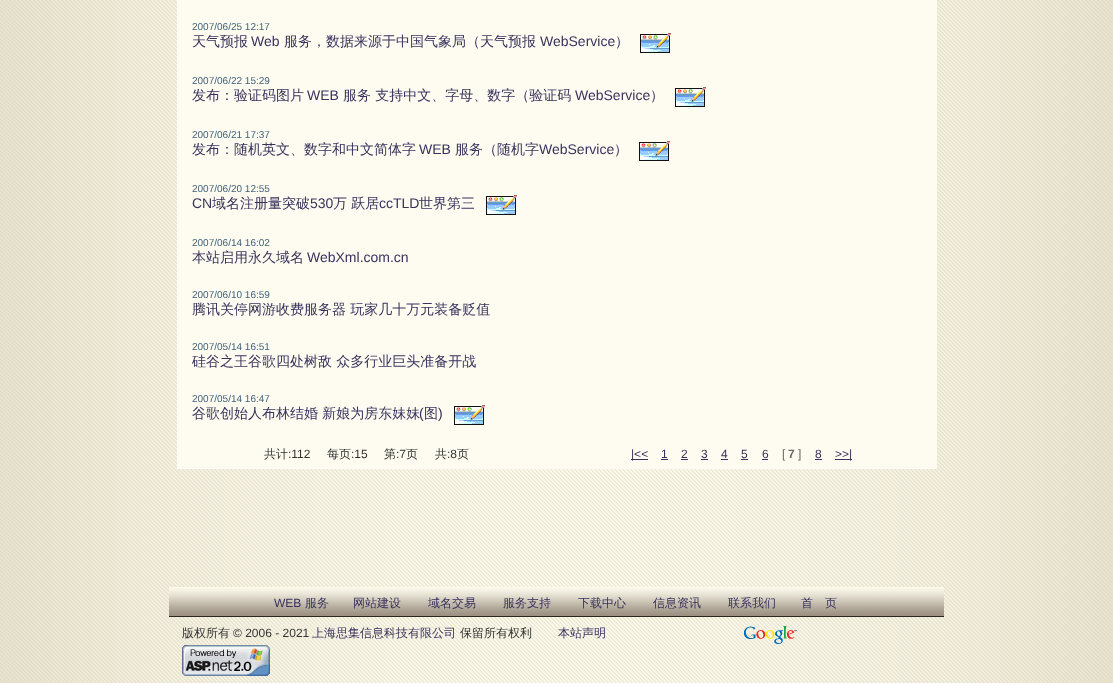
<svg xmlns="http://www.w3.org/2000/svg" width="1113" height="683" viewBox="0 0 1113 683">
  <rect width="100%" height="100%" fill="#fff"/>
  <image x="0" y="0" width="1113" height="683" href="img/1.png"/>
  <path d="M177 0h760v469H177z" fill="#fefcf0"/>
  <image x="640" y="33" width="31" height="20" href="img/2.png"/>
  <image x="675" y="87" width="31" height="20" href="img/2.png"/>
  <image x="639" y="141" width="31" height="20" href="img/2.png"/>
  <image x="486" y="195" width="31" height="20" href="img/2.png"/>
  <image x="454" y="405" width="31" height="20" href="img/2.png"/>
  <path d="M631 459h17v1H631z" fill="#3a325d"/>
  <path d="M661 459h7v1H661z" fill="#3a325d"/>
  <path d="M681 459h7v1H681z" fill="#3a325d"/>
  <path d="M701 459h7v1H701z" fill="#3a325d"/>
  <path d="M721 459h7v1H721z" fill="#3a325d"/>
  <path d="M741 459h7v1H741z" fill="#3a325d"/>
  <path d="M762 459h6v1H762z" fill="#3a325d"/>
  <path d="M815 459h7v1H815z" fill="#3a325d"/>
  <path d="M835 459h17v1H835z" fill="#3a325d"/>
  <image x="169" y="587" width="775" height="30" href="img/3.png"/>
  <image x="744" y="626" width="53" height="18" href="img/4.png"/>
  <image x="182" y="645" width="88" height="31" href="img/5.png"/>
  <text x="192" y="30" font-family="Liberation Sans" font-size="10" fill="#40627c">2007/06/25 12:17</text>
  <text x="192" y="46" font-family="WenQuanYi Zen Hei" font-size="14" font-weight="500" fill="#3a325d">天气预报</text>
  <text x="251" y="46" font-family="Liberation Sans" font-size="14" fill="#3a325d">Web</text>
  <text x="284" y="46" font-family="WenQuanYi Zen Hei" font-size="14" font-weight="500" fill="#3a325d">服务，数据来源于中国气象局（天气预报</text>
  <text x="540" y="46" font-family="Liberation Sans" font-size="14" fill="#3a325d">WebService</text>
  <text x="615" y="46" font-family="WenQuanYi Zen Hei" font-size="14" font-weight="500" fill="#3a325d">）</text>
  <text x="192" y="84" font-family="Liberation Sans" font-size="10" fill="#40627c">2007/06/22 15:29</text>
  <text x="192" y="100" font-family="WenQuanYi Zen Hei" font-size="14" font-weight="500" fill="#3a325d">发布：验证码图片</text>
  <text x="307" y="100" font-family="Liberation Sans" font-size="14" fill="#3a325d">WEB</text>
  <text x="343" y="100" font-family="WenQuanYi Zen Hei" font-size="14" font-weight="500" fill="#3a325d">服务 支持中文、字母、数字（验证码</text>
  <text x="575" y="100" font-family="Liberation Sans" font-size="14" fill="#3a325d">WebService</text>
  <text x="650" y="100" font-family="WenQuanYi Zen Hei" font-size="14" font-weight="500" fill="#3a325d">）</text>
  <text x="192" y="138" font-family="Liberation Sans" font-size="10" fill="#40627c">2007/06/21 17:37</text>
  <text x="192" y="154" font-family="WenQuanYi Zen Hei" font-size="14" font-weight="500" fill="#3a325d">发布：随机英文、数字和中文简体字</text>
  <text x="419" y="154" font-family="Liberation Sans" font-size="14" fill="#3a325d">WEB</text>
  <text x="455" y="154" font-family="WenQuanYi Zen Hei" font-size="14" font-weight="500" fill="#3a325d">服务（随机字</text>
  <text x="539" y="154" font-family="Liberation Sans" font-size="14" fill="#3a325d">WebService</text>
  <text x="614" y="154" font-family="WenQuanYi Zen Hei" font-size="14" font-weight="500" fill="#3a325d">）</text>
  <text x="192" y="192" font-family="Liberation Sans" font-size="10" fill="#40627c">2007/06/20 12:55</text>
  <text x="192" y="208" font-family="Liberation Sans" font-size="14" fill="#3a325d">CN</text>
  <text x="212" y="208" font-family="WenQuanYi Zen Hei" font-size="14" font-weight="500" fill="#3a325d">域名注册量突破</text>
  <text x="310" y="208" font-family="Liberation Sans" font-size="14" fill="#3a325d">530</text>
  <text x="333" y="208" font-family="WenQuanYi Zen Hei" font-size="14" font-weight="500" fill="#3a325d">万 跃居</text>
  <text x="379" y="208" font-family="Liberation Sans" font-size="14" fill="#3a325d">ccTLD</text>
  <text x="419" y="208" font-family="WenQuanYi Zen Hei" font-size="14" font-weight="500" fill="#3a325d">世界第三</text>
  <text x="192" y="246" font-family="Liberation Sans" font-size="10" fill="#40627c">2007/06/14 16:02</text>
  <text x="192" y="262" font-family="WenQuanYi Zen Hei" font-size="14" font-weight="500" fill="#3a325d">本站启用永久域名</text>
  <text x="307" y="262" font-family="Liberation Sans" font-size="14" fill="#3a325d">WebXml.com.cn</text>
  <text x="192" y="298" font-family="Liberation Sans" font-size="10" fill="#40627c">2007/06/10 16:59</text>
  <text x="192" y="314" font-family="WenQuanYi Zen Hei" font-size="14" font-weight="500" fill="#3a325d">腾讯关停网游收费服务器 玩家几十万元装备贬值</text>
  <text x="192" y="350" font-family="Liberation Sans" font-size="10" fill="#40627c">2007/05/14 16:51</text>
  <text x="192" y="366" font-family="WenQuanYi Zen Hei" font-size="14" font-weight="500" fill="#3a325d">硅谷之王谷歌四处树敌 众多行业巨头准备开战</text>
  <text x="192" y="402" font-family="Liberation Sans" font-size="10" fill="#40627c">2007/05/14 16:47</text>
  <text x="192" y="418" font-family="WenQuanYi Zen Hei" font-size="14" font-weight="500" fill="#3a325d">谷歌创始人布林结婚 新娘为房东妹妹</text>
  <text x="419" y="418" font-family="Liberation Sans" font-size="14" fill="#3a325d">(</text>
  <text x="424" y="418" font-family="WenQuanYi Zen Hei" font-size="14" font-weight="500" fill="#3a325d">图</text>
  <text x="438" y="418" font-family="Liberation Sans" font-size="14" fill="#3a325d">)</text>
  <text x="264" y="458" font-family="WenQuanYi Zen Hei" font-size="12" font-weight="500" fill="#333">共计</text>
  <text x="288" y="458" font-family="Liberation Sans" font-size="12" fill="#333">:112</text>
  <text x="327" y="458" font-family="WenQuanYi Zen Hei" font-size="12" font-weight="500" fill="#333">每页</text>
  <text x="351" y="458" font-family="Liberation Sans" font-size="12" fill="#333">:15</text>
  <text x="384" y="458" font-family="WenQuanYi Zen Hei" font-size="12" font-weight="500" fill="#333">第</text>
  <text x="396" y="458" font-family="Liberation Sans" font-size="12" fill="#333">:7</text>
  <g font-family="WenQuanYi Zen Hei" font-size="12" font-weight="500" fill="#333">
    <text x="406" y="458">页</text>
    <text x="435" y="458">共</text>
  </g>
  <text x="447" y="458" font-family="Liberation Sans" font-size="12" fill="#333">:8</text>
  <text x="457" y="458" font-family="WenQuanYi Zen Hei" font-size="12" font-weight="500" fill="#333">页</text>
  <g font-family="Liberation Sans" font-size="12" fill="#3a325d">
    <text x="631" y="458">|&lt;&lt;</text>
    <text x="661" y="458">1</text>
    <text x="681" y="458">2</text>
    <text x="701" y="458">3</text>
    <text x="721" y="458">4</text>
    <text x="741" y="458">5</text>
    <text x="762" y="458">6</text>
  </g>
  <text x="782" y="458" font-family="Liberation Sans" font-size="12" fill="#666">[</text>
  <text x="788" y="458" font-family="Liberation Sans" font-size="12" font-weight="bold" fill="#666">7</text>
  <text x="798" y="458" font-family="Liberation Sans" font-size="12" fill="#666">]</text>
  <g font-family="Liberation Sans" font-size="12" fill="#3a325d">
    <text x="815" y="458">8</text>
    <text x="835" y="458">&gt;&gt;|</text>
    <text x="274" y="607">WEB</text>
  </g>
  <g font-family="WenQuanYi Zen Hei" font-size="12" font-weight="500" fill="#3a325d">
    <text x="305" y="607">服务</text>
    <text x="353" y="607">网站建设</text>
    <text x="428" y="607">域名交易</text>
    <text x="503" y="607">服务支持</text>
    <text x="578" y="607">下载中心</text>
    <text x="653" y="607">信息资讯</text>
    <text x="728" y="607">联系我们</text>
    <text x="801" y="607">首　页</text>
  </g>
  <text x="182" y="637" font-family="WenQuanYi Zen Hei" font-size="12" font-weight="500" fill="#333">版权所有</text>
  <text x="233" y="637" font-family="Liberation Sans" font-size="12" fill="#333">© 2006 - 2021</text>
  <text x="312" y="637" font-family="WenQuanYi Zen Hei" font-size="12" font-weight="500" fill="#3a325d">上海思集信息科技有限公司</text>
  <text x="460" y="637" font-family="WenQuanYi Zen Hei" font-size="12" font-weight="500" fill="#333">保留所有权利</text>
  <text x="558" y="637" font-family="WenQuanYi Zen Hei" font-size="12" font-weight="500" fill="#3a325d">本站声明</text>
</svg>
